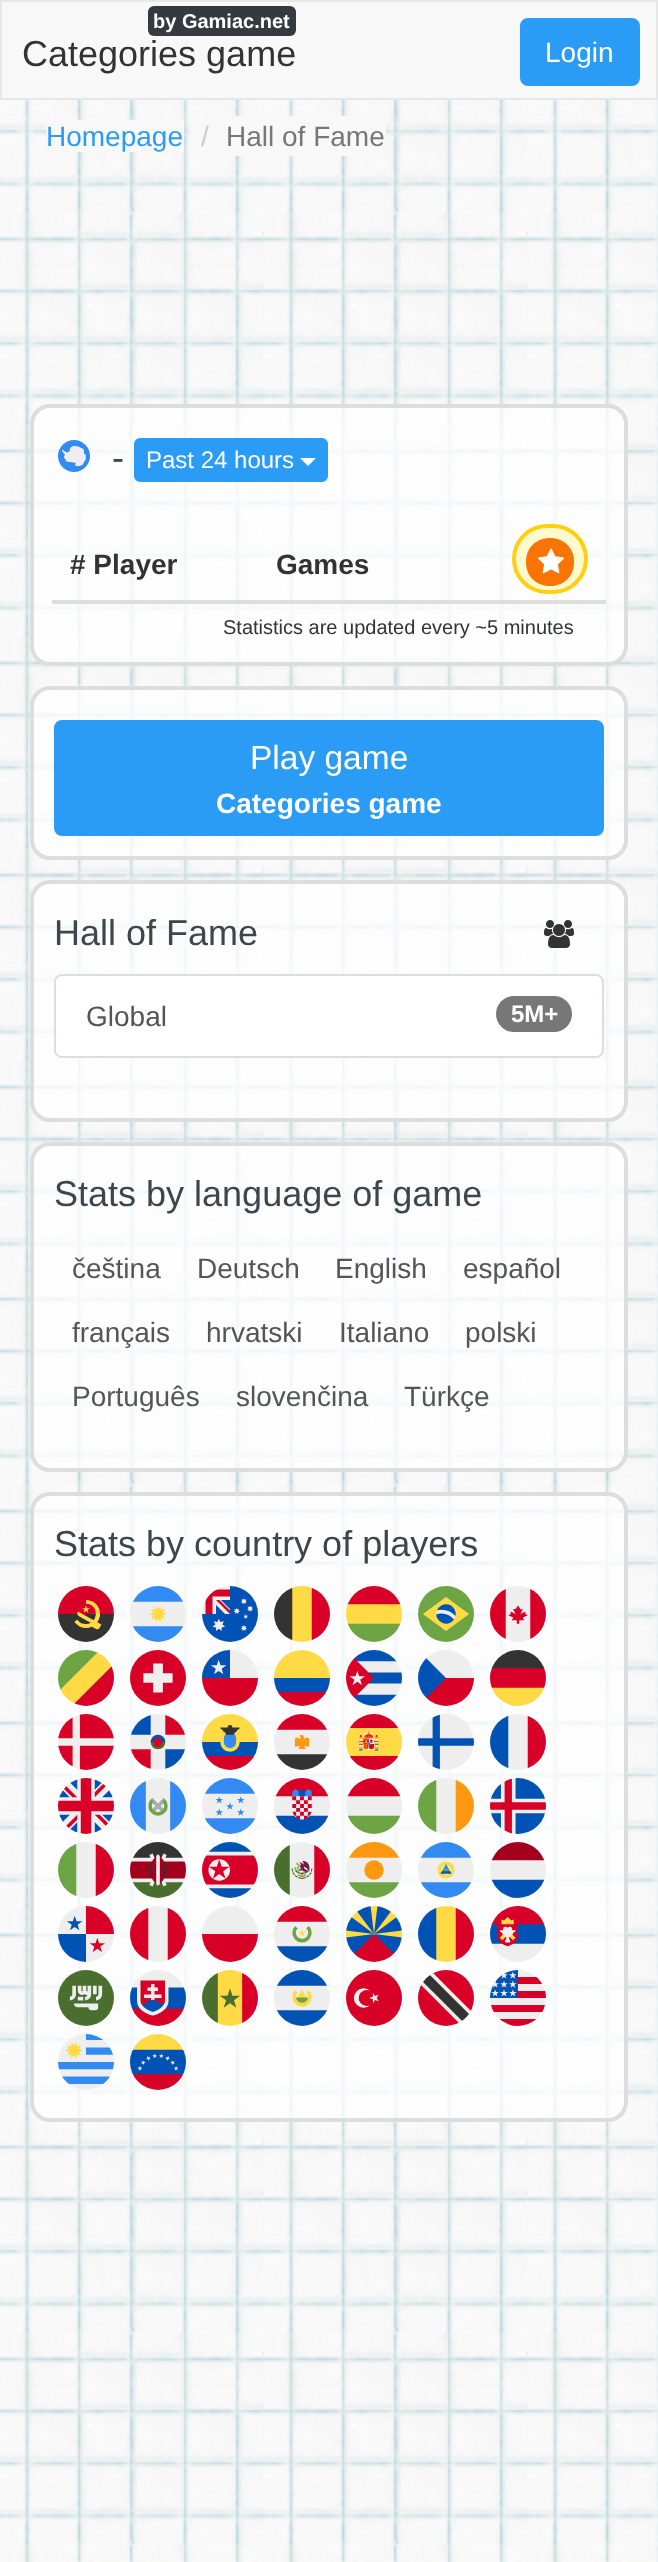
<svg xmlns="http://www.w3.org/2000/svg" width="658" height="2562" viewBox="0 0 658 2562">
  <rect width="100%" height="100%" fill="#fff"/>
  <image x="0" y="100" width="658" height="2462" href="img/1.png"/>
  <path d="M1 1h656v98H1z" fill="#f8f8f8" stroke="#e7e7e7" stroke-width="2"/>
  <rect x="148" y="6" width="148" height="30" rx="6" fill="#343a40"/>
  <rect x="521" y="19" width="118" height="66" rx="7" fill="#2b9cf5" stroke="#2b9cf5" stroke-width="2"/>
  <path d="M46 120h138v32H46z" fill="#f8f8f8"/>
  <path d="M190 116h196v40H190z" fill="#f8f8f8"/>
  <rect x="32" y="406" width="594" height="258" rx="18" fill="#ffffffbf" stroke="#ddd" stroke-width="4"/>
  <image x="58" y="440" width="32" height="32" href="img/2.png"/>
  <rect x="135" y="439" width="192" height="42" rx="5" fill="#2b9cf5" stroke="#2b9cf5" stroke-width="2"/>
  <path d="M300 458H316L308 466Z" fill="#fff"/>
  <path d="M52 600h554v4H52z" fill="#ddd"/>
  <rect x="514" y="526" width="72" height="66" rx="33" fill="#fffacd" stroke="#ffcf10" stroke-width="4"/>
  <path d="M574 562C574 530 526 530 526 562C526 594 574 594 574 562Z" fill="#fa7403"/>
  <image x="538" y="548" width="26" height="26" href="img/3.png"/>
  <rect x="32" y="688" width="594" height="170" rx="18" fill="#ffffffbf" stroke="#ddd" stroke-width="4"/>
  <rect x="55" y="721" width="548" height="114" rx="7" fill="#2b9cf5" stroke="#2b9cf5" stroke-width="2"/>
  <rect x="32" y="882" width="594" height="238" rx="18" fill="#ffffffbf" stroke="#ddd" stroke-width="4"/>
  <image x="544" y="920" width="30" height="28" href="img/4.png"/>
  <rect x="55" y="975" width="548" height="82" rx="7" fill="#fff" stroke="#ddd" stroke-width="2"/>
  <rect x="496" y="996" width="76" height="36" rx="18" fill="#777"/>
  <rect x="32" y="1144" width="594" height="326" rx="18" fill="#ffffffbf" stroke="#ddd" stroke-width="4"/>
  <rect x="32" y="1494" width="594" height="626" rx="18" fill="#ffffffbf" stroke="#ddd" stroke-width="4"/>
  <image x="58" y="1586" width="56" height="56" href="img/5.png"/>
  <image x="130" y="1586" width="56" height="56" href="img/6.png"/>
  <image x="202" y="1586" width="56" height="56" href="img/7.png"/>
  <image x="274" y="1586" width="56" height="56" href="img/8.png"/>
  <image x="346" y="1586" width="56" height="56" href="img/9.png"/>
  <image x="418" y="1586" width="56" height="56" href="img/10.png"/>
  <image x="490" y="1586" width="56" height="56" href="img/11.png"/>
  <image x="58" y="1650" width="56" height="56" href="img/12.png"/>
  <image x="130" y="1650" width="56" height="56" href="img/13.png"/>
  <image x="202" y="1650" width="56" height="56" href="img/14.png"/>
  <image x="274" y="1650" width="56" height="56" href="img/15.png"/>
  <image x="346" y="1650" width="56" height="56" href="img/16.png"/>
  <image x="418" y="1650" width="56" height="56" href="img/17.png"/>
  <image x="490" y="1650" width="56" height="56" href="img/18.png"/>
  <image x="58" y="1714" width="56" height="56" href="img/19.png"/>
  <image x="130" y="1714" width="56" height="56" href="img/20.png"/>
  <image x="202" y="1714" width="56" height="56" href="img/21.png"/>
  <image x="274" y="1714" width="56" height="56" href="img/22.png"/>
  <image x="346" y="1714" width="56" height="56" href="img/23.png"/>
  <image x="418" y="1714" width="56" height="56" href="img/24.png"/>
  <image x="490" y="1714" width="56" height="56" href="img/25.png"/>
  <image x="58" y="1778" width="56" height="56" href="img/26.png"/>
  <image x="130" y="1778" width="56" height="56" href="img/27.png"/>
  <image x="202" y="1778" width="56" height="56" href="img/28.png"/>
  <image x="274" y="1778" width="56" height="56" href="img/29.png"/>
  <image x="346" y="1778" width="56" height="56" href="img/30.png"/>
  <image x="418" y="1778" width="56" height="56" href="img/31.png"/>
  <image x="490" y="1778" width="56" height="56" href="img/32.png"/>
  <image x="58" y="1842" width="56" height="56" href="img/33.png"/>
  <image x="130" y="1842" width="56" height="56" href="img/34.png"/>
  <image x="202" y="1842" width="56" height="56" href="img/35.png"/>
  <image x="274" y="1842" width="56" height="56" href="img/36.png"/>
  <image x="346" y="1842" width="56" height="56" href="img/37.png"/>
  <image x="418" y="1842" width="56" height="56" href="img/38.png"/>
  <image x="490" y="1842" width="56" height="56" href="img/39.png"/>
  <image x="58" y="1906" width="56" height="56" href="img/40.png"/>
  <image x="130" y="1906" width="56" height="56" href="img/41.png"/>
  <image x="202" y="1906" width="56" height="56" href="img/42.png"/>
  <image x="274" y="1906" width="56" height="56" href="img/43.png"/>
  <image x="346" y="1906" width="56" height="56" href="img/44.png"/>
  <image x="418" y="1906" width="56" height="56" href="img/45.png"/>
  <image x="490" y="1906" width="56" height="56" href="img/46.png"/>
  <image x="58" y="1970" width="56" height="56" href="img/47.png"/>
  <image x="130" y="1970" width="56" height="56" href="img/48.png"/>
  <image x="202" y="1970" width="56" height="56" href="img/49.png"/>
  <image x="274" y="1970" width="56" height="56" href="img/50.png"/>
  <image x="346" y="1970" width="56" height="56" href="img/51.png"/>
  <image x="418" y="1970" width="56" height="56" href="img/52.png"/>
  <image x="490" y="1970" width="56" height="56" href="img/53.png"/>
  <image x="58" y="2034" width="56" height="56" href="img/54.png"/>
  <image x="130" y="2034" width="56" height="56" href="img/55.png"/>
  <text x="153" y="28" font-family="Liberation Sans" font-size="20" font-weight="bold" fill="#fff">by Gamiac.net</text>
  <text x="22" y="66" font-family="Liberation Sans" font-size="36" fill="#333">Categories game</text>
  <text x="545" y="62" font-family="Liberation Sans" font-size="28" fill="#fff">Login</text>
  <text x="46" y="146" font-family="Liberation Sans" font-size="28" fill="#2b9cf5">Homepage</text>
  <text x="201" y="146" font-family="Liberation Sans" font-size="28" fill="#ccc">/</text>
  <text x="226" y="146" font-family="Liberation Sans" font-size="28" fill="#777">Hall of Fame</text>
  <text x="112" y="470" font-family="Liberation Sans" font-size="36" fill="#3d464d">-</text>
  <text x="146" y="468" font-family="Liberation Sans" font-size="24" fill="#fff">Past 24 hours</text>
  <g font-family="Liberation Sans" font-size="28" font-weight="bold" fill="#333">
    <text x="70" y="574"># Player</text>
    <text x="276" y="574">Games</text>
  </g>
  <text x="223" y="634" font-family="Liberation Sans" font-size="20" fill="#333">Statistics are updated every ~5 minutes</text>
  <text x="250" y="769" font-family="Liberation Sans" font-size="33.5" fill="#fff">Play game</text>
  <text x="216" y="813" font-family="Liberation Sans" font-size="28" font-weight="bold" fill="#fff">Categories game</text>
  <text x="54" y="945" font-family="Liberation Sans" font-size="36" fill="#3d464d">Hall of Fame</text>
  <text x="86" y="1026" font-family="Liberation Sans" font-size="28" fill="#555">Global</text>
  <text x="511" y="1022" font-family="Liberation Sans" font-size="24" font-weight="bold" fill="#fff">5M+</text>
  <text x="54" y="1206" font-family="Liberation Sans" font-size="36" fill="#3d464d">Stats by language of game</text>
  <g font-family="Liberation Sans" font-size="28" fill="#555">
    <text x="72" y="1278">čeština</text>
    <text x="197" y="1278">Deutsch</text>
    <text x="335" y="1278">English</text>
    <text x="463" y="1278">español</text>
    <text x="72" y="1342">français</text>
    <text x="206" y="1342">hrvatski</text>
    <text x="339" y="1342">Italiano</text>
    <text x="465" y="1342">polski</text>
    <text x="72" y="1406">Português</text>
    <text x="236" y="1406">slovenčina</text>
    <text x="404" y="1406">Türkçe</text>
  </g>
  <text x="54" y="1556" font-family="Liberation Sans" font-size="36" fill="#3d464d">Stats by country of players</text>
</svg>
